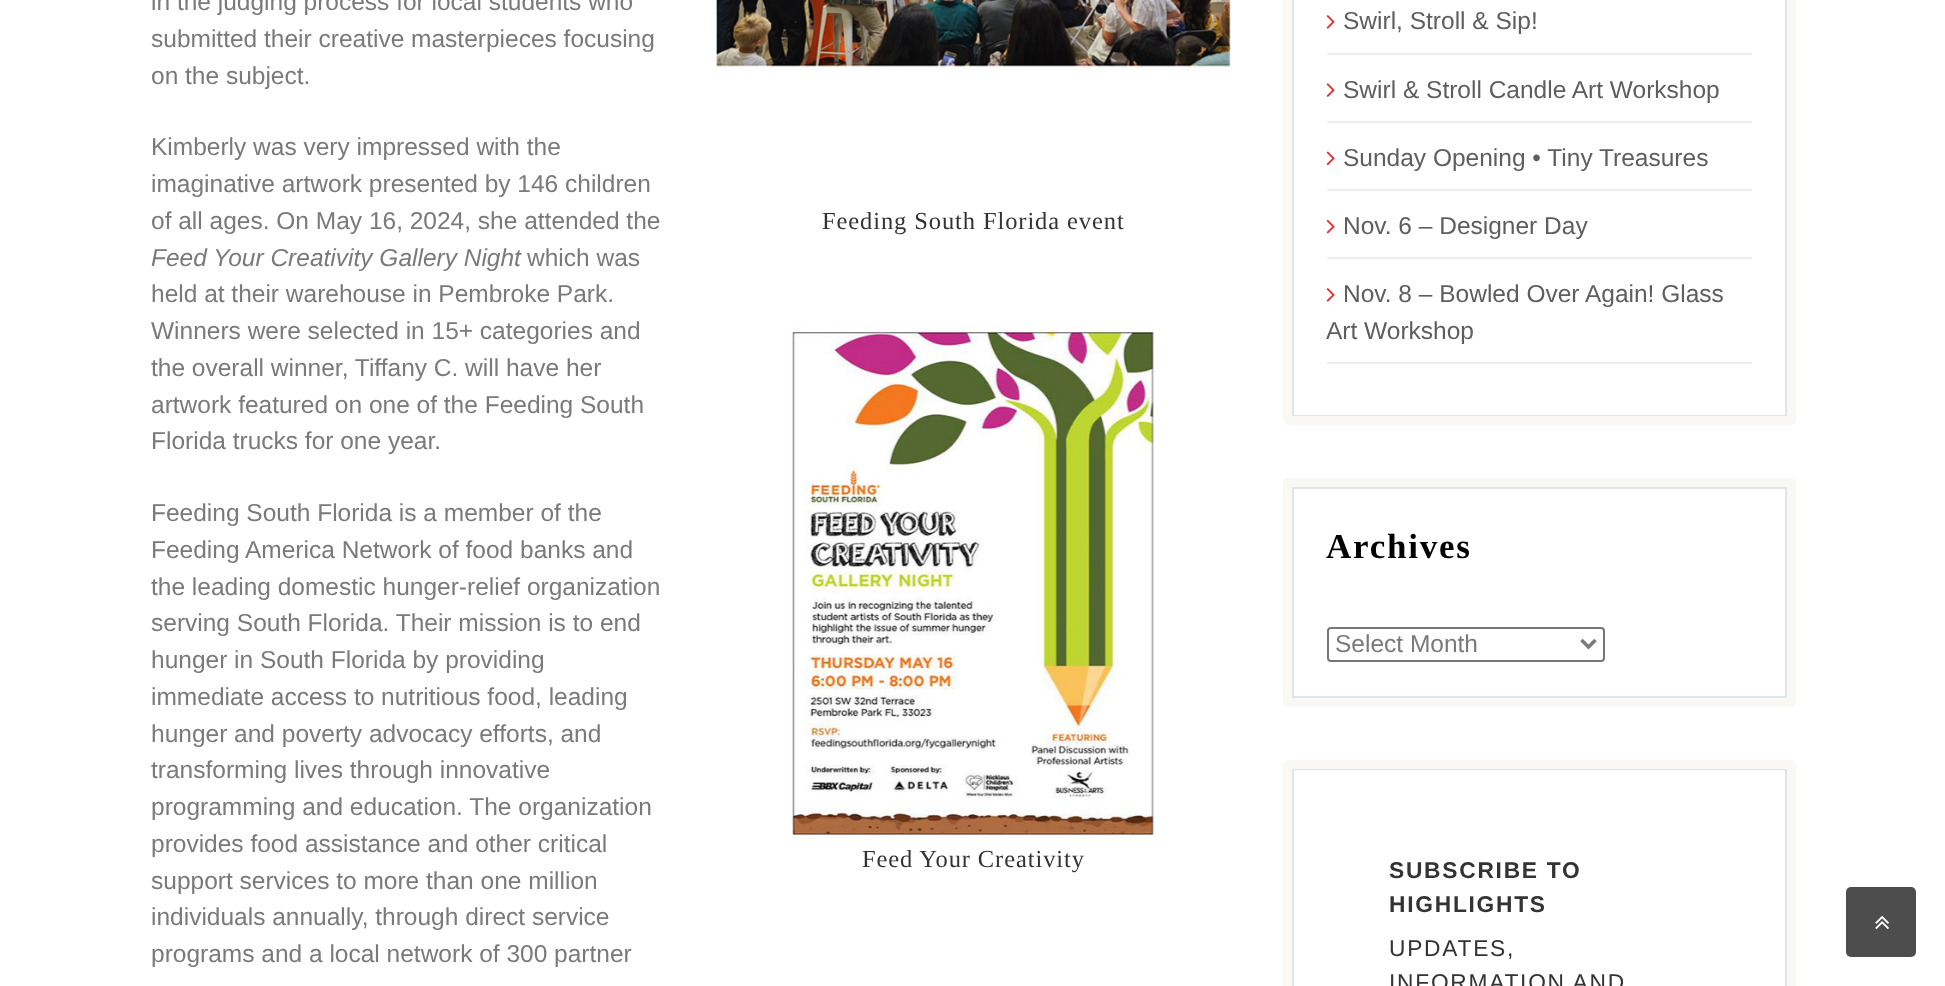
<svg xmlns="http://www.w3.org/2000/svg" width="1945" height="986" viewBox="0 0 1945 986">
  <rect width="100%" height="100%" fill="#fff"/>
  <image x="716" y="0" width="515" height="67" href="img/1.png"/>
  <image x="791" y="327" width="364" height="513" href="img/2.png"/>
  <path d="M1293 -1h493v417H1293z" fill="none" stroke="#e0e5e9" stroke-width="2"/>
  <rect x="1287.5" y="-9.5" width="504" height="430" rx="0.5" fill="none" stroke="#f9f8f5" stroke-width="9"/>
  <path d="M1327 53h425v2H1327z" fill="#eee"/>
  <image x="1326" y="15" width="9" height="14" href="img/3.png"/>
  <path d="M1327 121h425v2H1327z" fill="#eee"/>
  <image x="1326" y="83" width="9" height="14" href="img/4.png"/>
  <path d="M1327 189h425v2H1327z" fill="#eee"/>
  <image x="1326" y="151" width="9" height="15" href="img/5.png"/>
  <path d="M1327 257h425v2H1327z" fill="#eee"/>
  <image x="1326" y="219" width="9" height="15" href="img/6.png"/>
  <path d="M1327 362h425v2H1327z" fill="#eee"/>
  <image x="1326" y="288" width="9" height="14" href="img/3.png"/>
  <path d="M1293 488h493v209H1293z" fill="none" stroke="#e0e5e9" stroke-width="2"/>
  <rect x="1287.5" y="482.5" width="504" height="220" rx="0.5" fill="none" stroke="#f9f8f5" stroke-width="9"/>
  <rect x="1328" y="628" width="276" height="33" rx="3" fill="none" stroke="#767676" stroke-width="2"/>
  <path d="M1581.5 640L1588.5 647L1595.5 640" fill="none" stroke="#7a7a7a" stroke-width="3.5"/>
  <path d="M1293 769h493v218H1293z" fill="none" stroke="#e0e5e9" stroke-width="2"/>
  <rect x="1287.5" y="764.5" width="504" height="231" rx="0.5" fill="none" stroke="#f9f8f5" stroke-width="9"/>
  <rect x="1846" y="887" width="70" height="70" rx="5" fill="#4d4d4d"/>
  <image x="1875" y="915" width="14" height="14" href="img/7.png"/>
  <g font-family="Liberation Sans" font-size="24.5" fill="#7a7a7a">
    <text x="151" y="10">in the judging process for local students who</text>
    <text x="151" y="47">submitted their creative masterpieces focusing</text>
    <text x="151" y="84">on the subject.</text>
    <text x="151" y="155">Kimberly was very impressed with the</text>
    <text x="151" y="192">imaginative artwork presented by 146 children</text>
    <text x="151" y="229">of all ages. On May 16, 2024, she attended the</text>
  </g>
  <text x="151" y="266" font-family="Liberation Sans" font-size="24.5" font-style="italic" fill="#7a7a7a">Feed Your Creativity Gallery Night</text>
  <g font-family="Liberation Sans" font-size="24.5" fill="#7a7a7a">
    <text x="527" y="266">which was</text>
    <text x="151" y="302">held at their warehouse in Pembroke Park.</text>
    <text x="151" y="339">Winners were selected in 15+ categories and</text>
    <text x="151" y="376">the overall winner, Tiffany C. will have her</text>
    <text x="151" y="413">artwork featured on one of the Feeding South</text>
    <text x="151" y="449">Florida trucks for one year.</text>
    <text x="151" y="521">Feeding South Florida is a member of the</text>
    <text x="151" y="558">Feeding America Network of food banks and</text>
    <text x="151" y="595">the leading domestic hunger-relief organization</text>
    <text x="151" y="631">serving South Florida. Their mission is to end</text>
    <text x="151" y="668">hunger in South Florida by providing</text>
    <text x="151" y="705">immediate access to nutritious food, leading</text>
    <text x="151" y="742">hunger and poverty advocacy efforts, and</text>
    <text x="151" y="778">transforming lives through innovative</text>
    <text x="151" y="815">programming and education. The organization</text>
    <text x="151" y="852">provides food assistance and other critical</text>
    <text x="151" y="889">support services to more than one million</text>
    <text x="151" y="925">individuals annually, through direct service</text>
    <text x="151" y="962">programs and a local network of 300 partner</text>
  </g>
  <g font-family="Liberation Serif" font-size="24.5" letter-spacing="0.9" fill="#333">
    <text x="822" y="229">Feeding South Florida event</text>
    <text x="862" y="867">Feed Your Creativity</text>
  </g>
  <g font-family="Liberation Sans" font-size="24.5" fill="#5e5e5e">
    <text x="1343" y="29">Swirl, Stroll &amp; Sip!</text>
    <text x="1343" y="98">Swirl &amp; Stroll Candle Art Workshop</text>
    <text x="1343" y="166">Sunday Opening • Tiny Treasures</text>
    <text x="1343" y="234">Nov. 6 – Designer Day</text>
    <text x="1343" y="302">Nov. 8 – Bowled Over Again! Glass</text>
    <text x="1326" y="339">Art Workshop</text>
  </g>
  <text x="1326" y="558" font-family="Liberation Serif" font-size="35" font-weight="bold" letter-spacing="1.75" fill="#000">Archives</text>
  <text x="1335" y="652" font-family="Liberation Sans" font-size="24.5" fill="#7a7a7a">Select Month</text>
  <g font-family="Liberation Sans" font-size="22.75" font-weight="bold" letter-spacing="1.75" fill="#333">
    <text x="1389" y="878">SUBSCRIBE TO</text>
    <text x="1389" y="912">HIGHLIGHTS</text>
  </g>
  <g font-family="Liberation Sans" font-size="22.75" letter-spacing="1.75" fill="#333">
    <text x="1389" y="956">UPDATES,</text>
    <text x="1389" y="990">INFORMATION AND</text>
  </g>
</svg>
